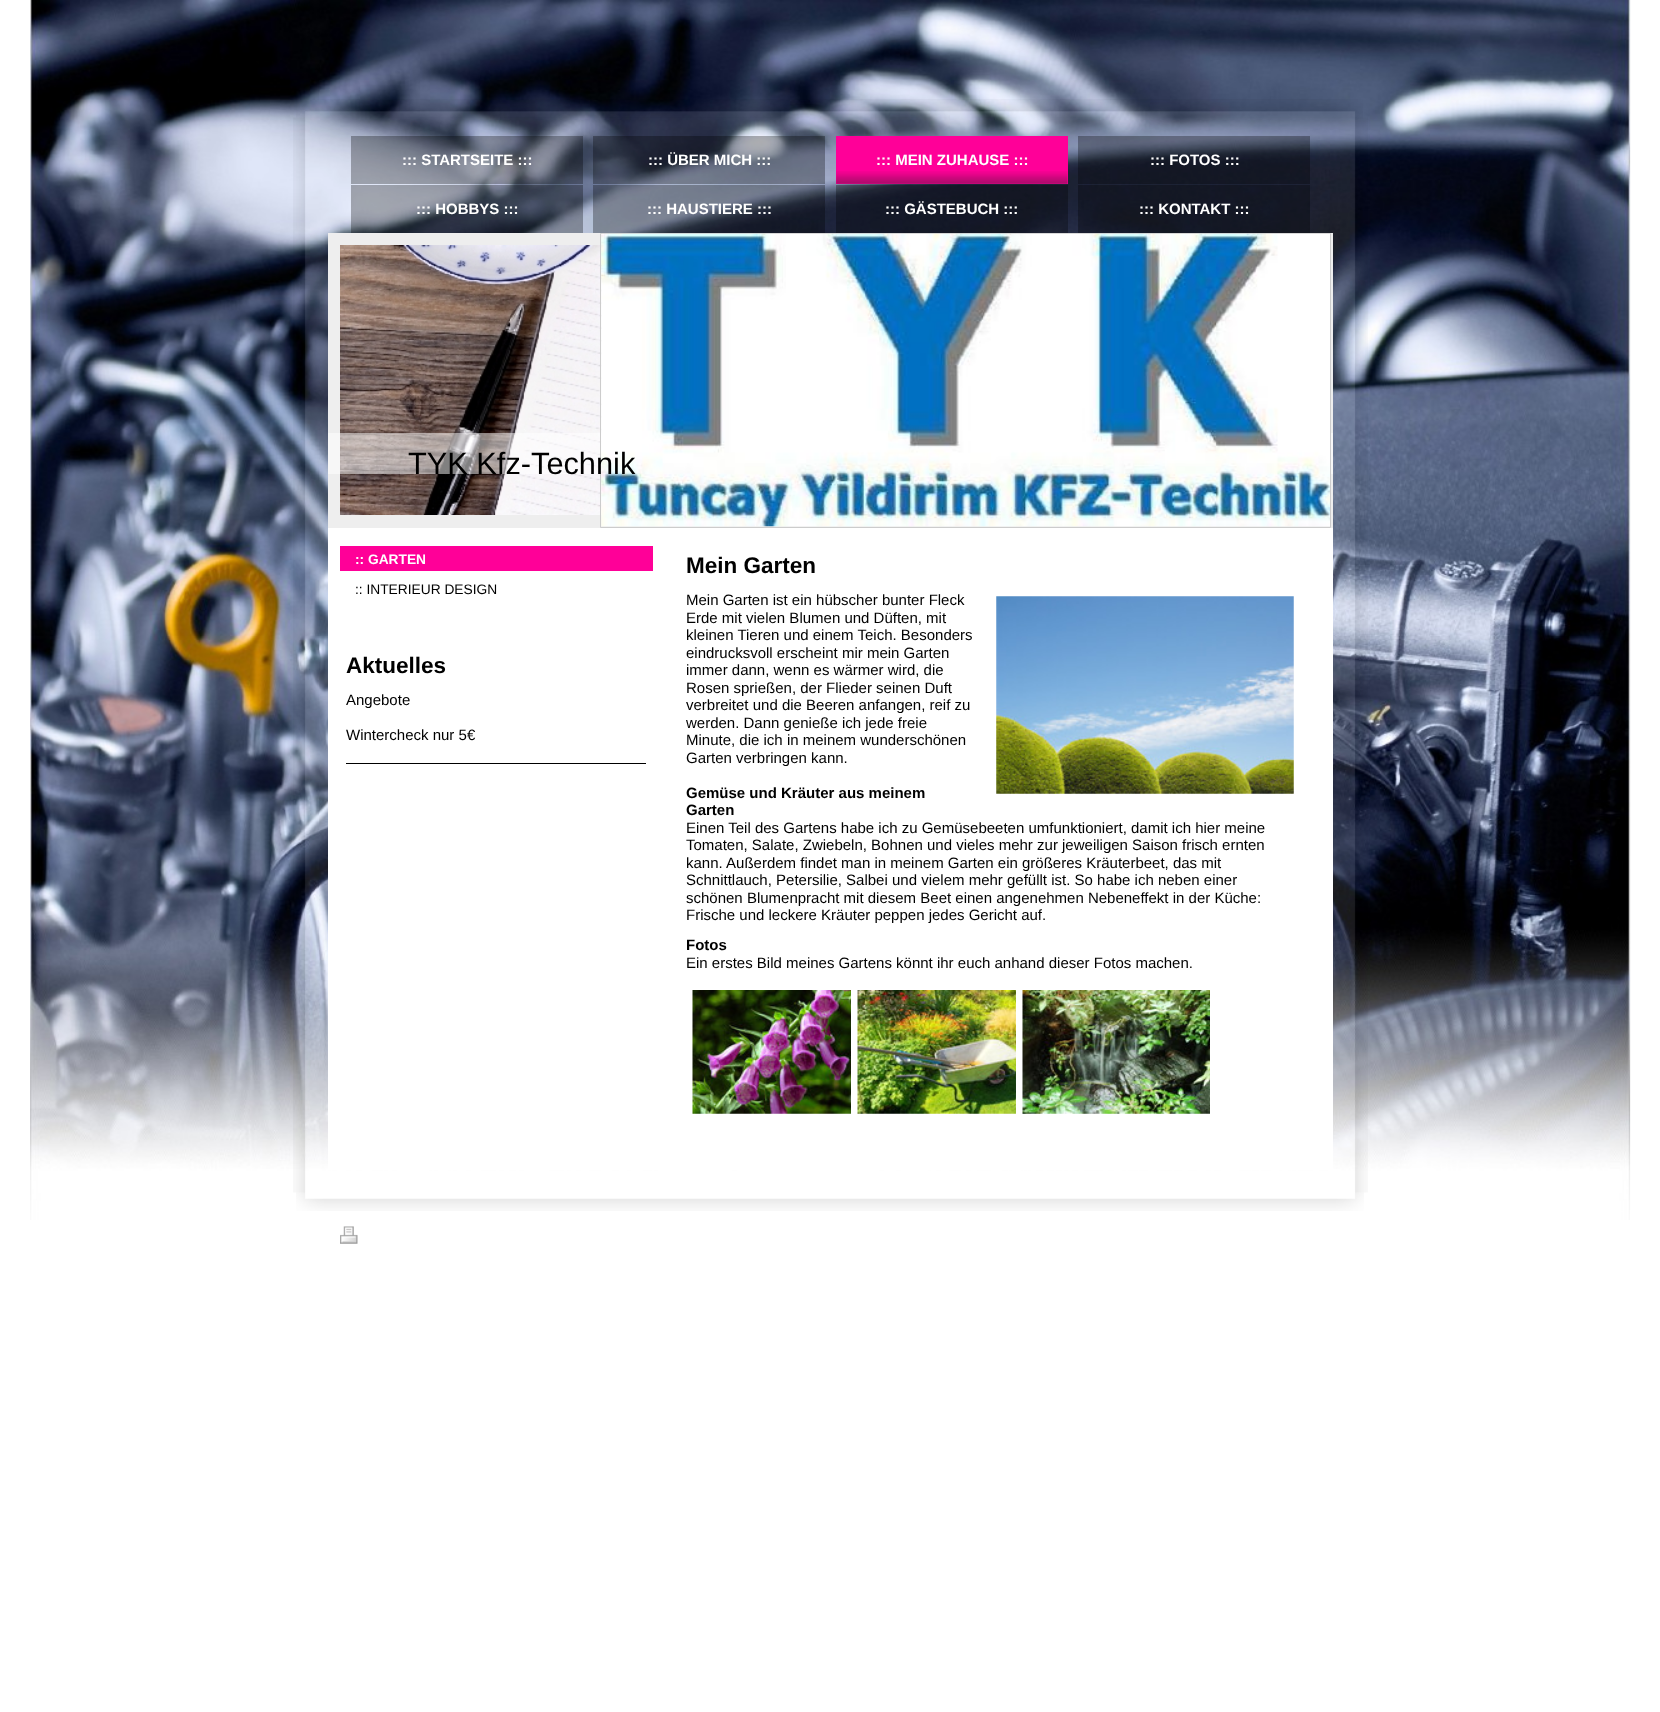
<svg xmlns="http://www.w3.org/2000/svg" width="1660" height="1712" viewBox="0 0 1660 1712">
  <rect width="100%" height="100%" fill="#fff"/>
  <image x="30" y="0" width="1601" height="1220" href="img/1.png"/>
  <image x="296" y="99" width="1067" height="19" href="img/2.png"/>
  <image x="293" y="117" width="1075" height="1076" href="img/3.png"/>
  <path d="M351 136h232v48H351z" fill="#0000004d"/>
  <path d="M593 136h232v48H593z" fill="#0000004d"/>
  <path d="M836 136h232v48H836z" fill="#ff0098"/>
  <image x="836" y="171" width="232" height="13" href="img/4.png"/>
  <path d="M1078 136h232v48H1078z" fill="#0000004d"/>
  <path d="M351 185h232v48H351z" fill="#0000004d"/>
  <path d="M593 185h232v48H593z" fill="#0000004d"/>
  <path d="M836 185h232v48H836z" fill="#0000004d"/>
  <path d="M1078 185h232v48H1078z" fill="#0000004d"/>
  <path d="M328 233h1005v295H328z" fill="#eee"/>
  <image x="340" y="245" width="262" height="270" href="img/5.png"/>
  <path d="M328 433h1005v41H328z" fill="#ffffff80"/>
  <path d="M600.5 233.5h730v294H600.5z" fill="none" stroke="#ccc"/>
  <image x="601" y="233" width="729" height="294" href="img/6.png"/>
  <path d="M328 528h1005v642H328z" fill="#fff"/>
  <path d="M340 546h313v25H340z" fill="#ff0098"/>
  <path d="M346 763h300v1H346z" fill="#000"/>
  <image x="996" y="596" width="298" height="198" href="img/7.png"/>
  <image x="692" y="990" width="159" height="124" href="img/8.png"/>
  <image x="857" y="990" width="159" height="124" href="img/9.png"/>
  <image x="1022" y="990" width="188" height="124" href="img/10.png"/>
  <image x="296" y="1192" width="1068" height="19" href="img/11.png"/>
  <image x="340" y="1226" width="18" height="18" href="img/12.png"/>
  <g font-family="Liberation Sans" font-size="15" font-weight="bold" fill="#fff">
    <text x="402" y="165">::: STARTSEITE :::</text>
    <text x="648" y="165">::: ÜBER MICH :::</text>
    <text x="876" y="165">::: MEIN ZUHAUSE :::</text>
    <text x="1150" y="165">::: FOTOS :::</text>
    <text x="416" y="214">::: HOBBYS :::</text>
    <text x="647" y="214">::: HAUSTIERE :::</text>
    <text x="885" y="214">::: GÄSTEBUCH :::</text>
    <text x="1139" y="214">::: KONTAKT :::</text>
  </g>
  <text x="408" y="474" font-family="Liberation Sans" font-size="30.75" fill="#000">TYK Kfz-Technik</text>
  <text x="355" y="564" font-family="Liberation Sans" font-size="13.75" font-weight="bold" fill="#fff">:: GARTEN</text>
  <text x="355" y="594" font-family="Liberation Sans" font-size="13.75" fill="#000">:: INTERIEUR DESIGN</text>
  <text x="346" y="673" font-family="Liberation Sans" font-size="22.5" font-weight="bold" fill="#000">Aktuelles</text>
  <g font-family="Liberation Sans" font-size="15" fill="#000">
    <text x="346" y="705">Angebote</text>
    <text x="346" y="740">Wintercheck nur 5€</text>
  </g>
  <text x="686" y="573" font-family="Liberation Sans" font-size="22.5" font-weight="bold" fill="#000">Mein Garten</text>
  <g font-family="Liberation Sans" font-size="15" fill="#000">
    <text x="686" y="605">Mein Garten ist ein hübscher bunter Fleck</text>
    <text x="686" y="623">Erde mit vielen Blumen und Düften, mit</text>
    <text x="686" y="640">kleinen Tieren und einem Teich. Besonders</text>
    <text x="686" y="658">eindrucksvoll erscheint mir mein Garten</text>
    <text x="686" y="675">immer dann, wenn es wärmer wird, die</text>
    <text x="686" y="693">Rosen sprießen, der Flieder seinen Duft</text>
    <text x="686" y="710">verbreitet und die Beeren anfangen, reif zu</text>
    <text x="686" y="728">werden. Dann genieße ich jede freie</text>
    <text x="686" y="745">Minute, die ich in meinem wunderschönen</text>
    <text x="686" y="763">Garten verbringen kann.</text>
  </g>
  <g font-family="Liberation Sans" font-size="15" font-weight="bold" fill="#000">
    <text x="686" y="798">Gemüse und Kräuter aus meinem</text>
    <text x="686" y="815">Garten</text>
  </g>
  <g font-family="Liberation Sans" font-size="15" fill="#000">
    <text x="686" y="833">Einen Teil des Gartens habe ich zu Gemüsebeeten umfunktioniert, damit ich hier meine</text>
    <text x="686" y="850">Tomaten, Salate, Zwiebeln, Bohnen und vieles mehr zur jeweiligen Saison frisch ernten</text>
    <text x="686" y="868">kann. Außerdem findet man in meinem Garten ein größeres Kräuterbeet, das mit</text>
    <text x="686" y="885">Schnittlauch, Petersilie, Salbei und vielem mehr gefüllt ist. So habe ich neben einer</text>
    <text x="686" y="903">schönen Blumenpracht mit diesem Beet einen angenehmen Nebeneffekt in der Küche:</text>
    <text x="686" y="920">Frische und leckere Kräuter peppen jedes Gericht auf.</text>
  </g>
  <text x="686" y="950" font-family="Liberation Sans" font-size="15" font-weight="bold" fill="#000">Fotos</text>
  <text x="686" y="968" font-family="Liberation Sans" font-size="15" fill="#000">Ein erstes Bild meines Gartens könnt ihr euch anhand dieser Fotos machen.</text>
</svg>
